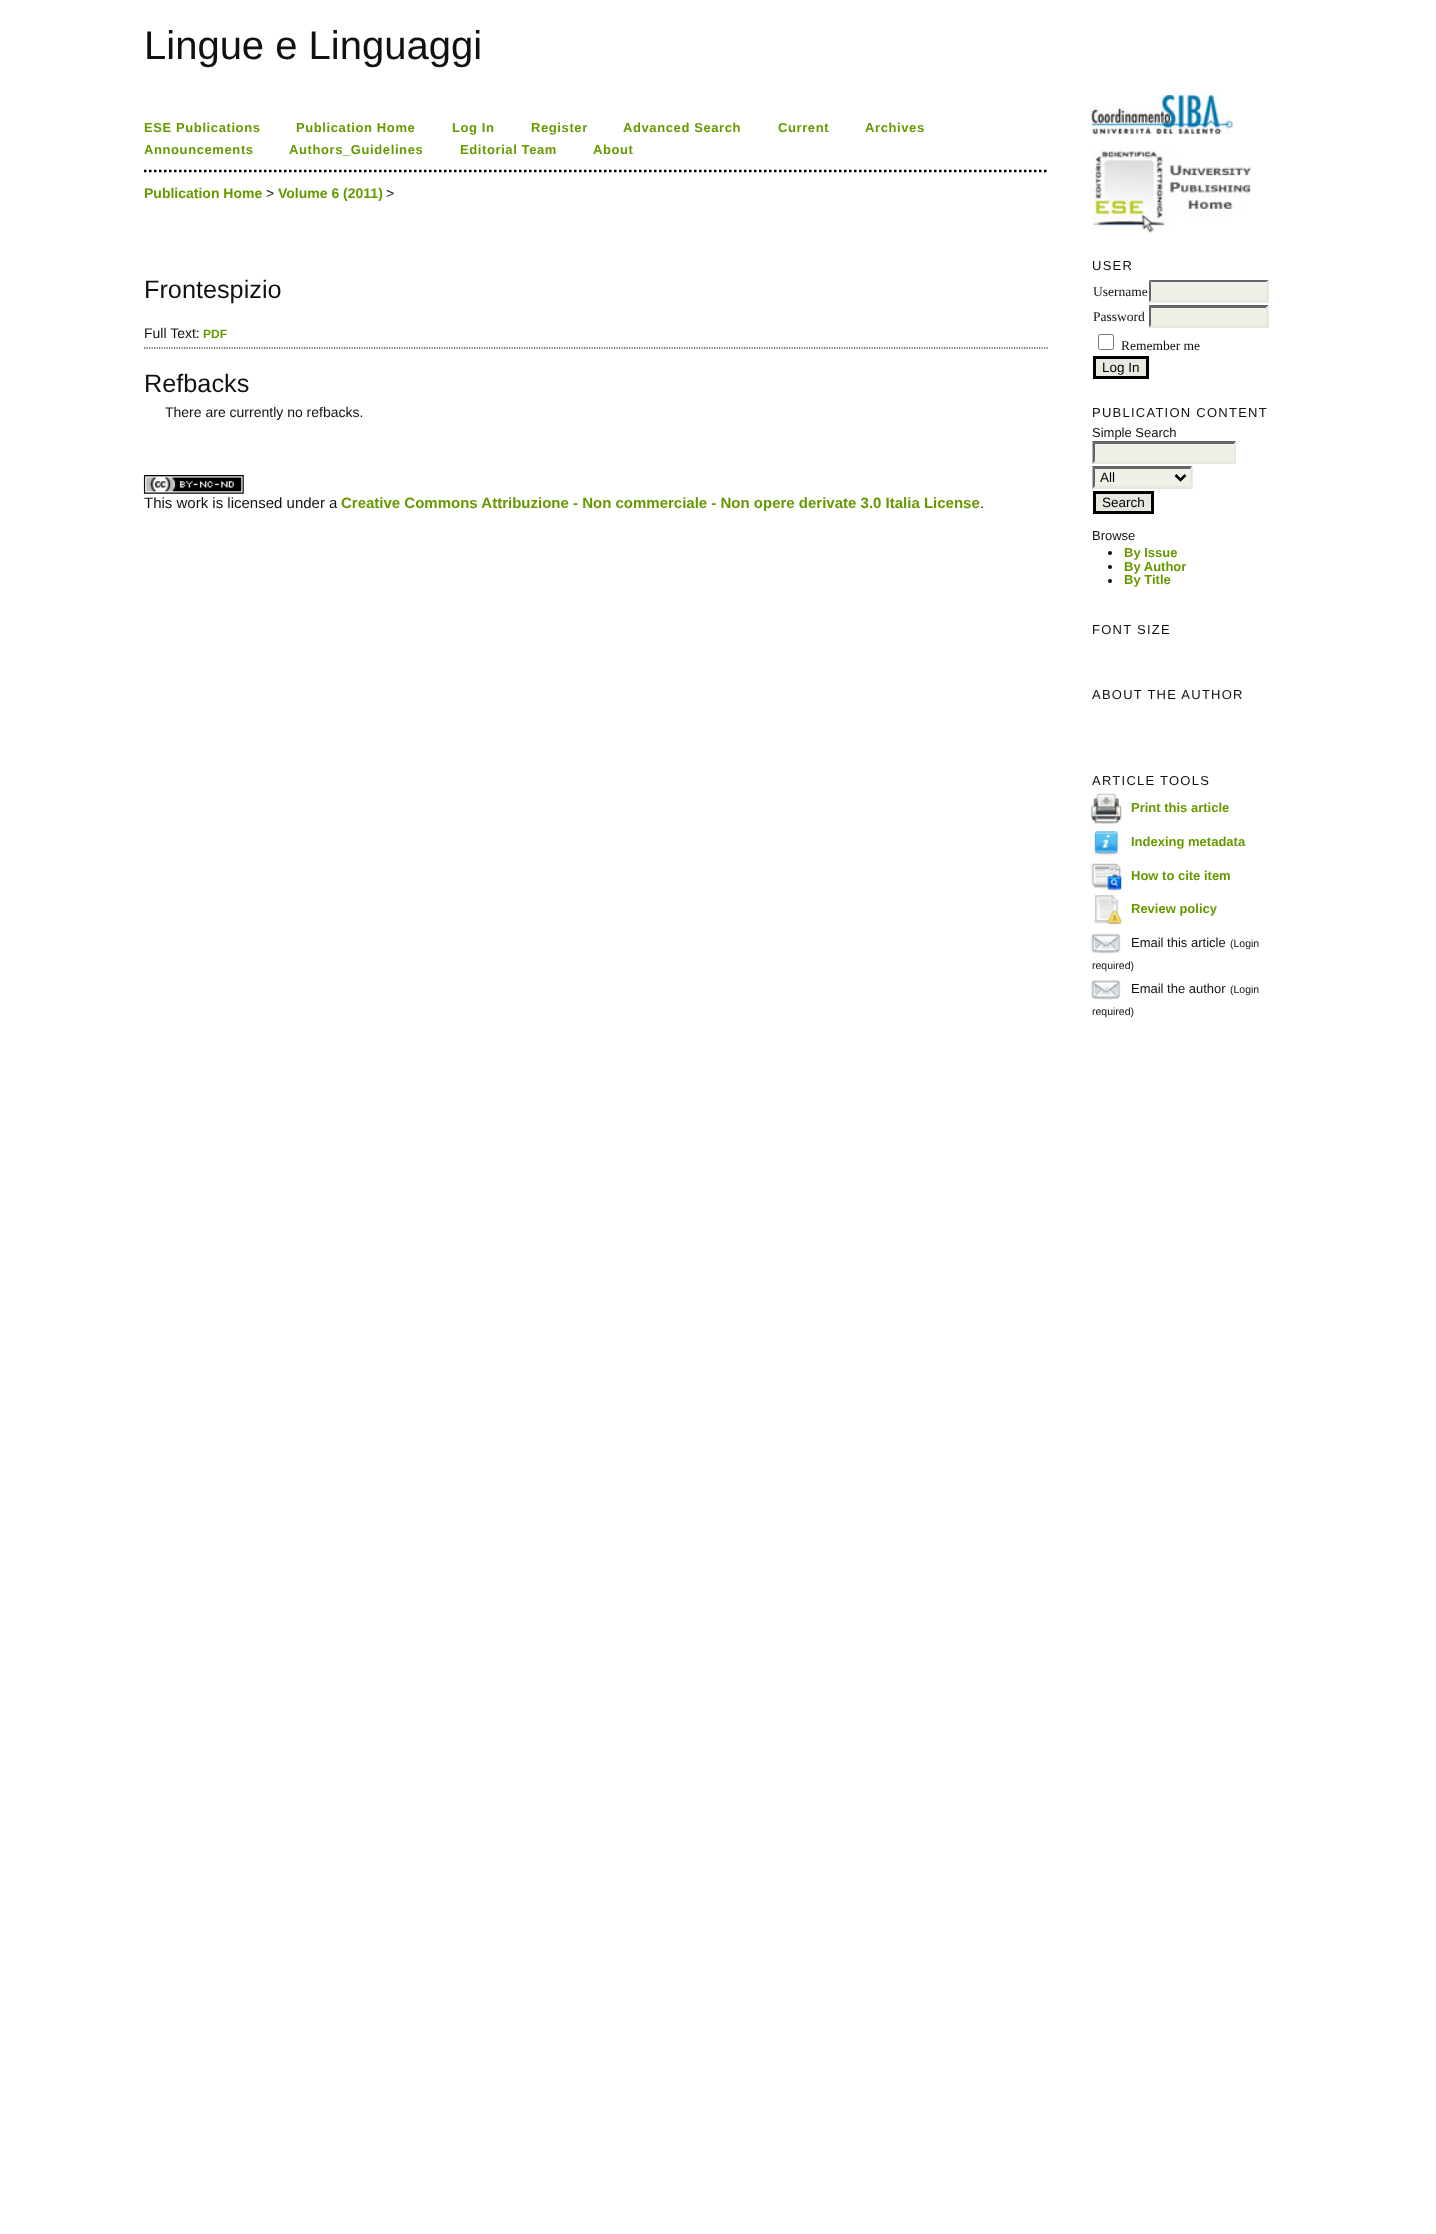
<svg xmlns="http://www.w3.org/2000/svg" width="1436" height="2234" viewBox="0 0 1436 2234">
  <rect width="100%" height="100%" fill="#fff"/>
  <path d="M144 171H1049" fill="none" stroke="#000" stroke-width="2.5" stroke-dasharray="2.5 2.5"/>
  <path d="M144 348H1049" fill="none" stroke="#000" stroke-width="1.2" stroke-dasharray="1.25 1.25"/>
  <image x="143" y="475" width="101" height="19" href="img/1.png"/>
  <image x="1091" y="95" width="142" height="39" href="img/2.png"/>
  <image x="1091" y="149" width="161" height="84" href="img/3.png"/>
  <path d="M1149 280h120v23H1149z" fill="#f0f0e8"/>
  <path d="M1149 280H1269L1266 282H1151Z" fill="#666"/>
  <path d="M1269 280V302.5L1266 300V282.5Z" fill="#e8e8e1"/>
  <path d="M1269 302H1149L1151 300H1266Z" fill="#e8e8e1"/>
  <path d="M1149 302.5V280L1151 282.5V300Z" fill="#666"/>
  <path d="M1149 305h120v23H1149z" fill="#f0f0e8"/>
  <path d="M1149 305H1269L1266 308H1151Z" fill="#666"/>
  <path d="M1269 305V327.5L1266 325V307.5Z" fill="#e8e8e1"/>
  <path d="M1269 328H1149L1151 325H1266Z" fill="#e8e8e1"/>
  <path d="M1149 327.5V305L1151 307.5V325Z" fill="#666"/>
  <rect x="1098.5" y="334.5" width="15" height="15" rx="2" fill="none" stroke="#767676"/>
  <path d="M1094.5 357.5h53v20H1094.5z" fill="#e8e8e1" stroke="#000" stroke-width="3"/>
  <path d="M1093 441h143v23H1093z" fill="#f0f0e8"/>
  <path d="M1092 441H1236L1234 444H1095Z" fill="#666"/>
  <path d="M1236 441V464L1234 461V444Z" fill="#e8e8e1"/>
  <path d="M1236 464H1092L1095 461H1234Z" fill="#e8e8e1"/>
  <path d="M1092.5 464V441L1095 444V461Z" fill="#666"/>
  <path d="M1093 466h100v23H1093z" fill="#f0f0e8"/>
  <path d="M1092 466H1192L1190 469H1095Z" fill="#666"/>
  <path d="M1192.5 466V489L1190 486V469Z" fill="#e8e8e1"/>
  <path d="M1192 489H1092L1095 486H1190Z" fill="#e8e8e1"/>
  <path d="M1092.5 489V466L1095 469V486Z" fill="#666"/>
  <path d="M1175.5 475L1180.5 480L1185.5 475" fill="none" stroke="#000" stroke-width="2.5"/>
  <path d="M1094.5 492.5h58v20H1094.5z" fill="#e8e8e1" stroke="#000" stroke-width="3"/>
  <circle cx="1110" cy="553" r="2" fill="#111"/>
  <circle cx="1110" cy="567" r="2" fill="#111"/>
  <circle cx="1110" cy="581" r="2" fill="#111"/>
  <image x="1091" y="793" width="31" height="31" href="img/4.png"/>
  <image x="1092" y="831" width="28" height="25" href="img/5.png"/>
  <image x="1091" y="863" width="31" height="28" href="img/6.png"/>
  <image x="1092" y="895" width="30" height="29" href="img/7.png"/>
  <image x="1091" y="933" width="30" height="21" href="img/8.png"/>
  <image x="1091" y="980" width="30" height="20" href="img/9.png"/>
  <text x="144" y="59" font-family="Liberation Sans" font-size="40" fill="#111">Lingue e Linguaggi</text>
  <g font-family="Liberation Sans" font-size="13" font-weight="bold" letter-spacing="0.6" fill="#690">
    <text x="144" y="132">ESE Publications</text>
    <text x="296" y="132">Publication Home</text>
    <text x="452" y="132">Log In</text>
    <text x="531" y="132">Register</text>
    <text x="623" y="132">Advanced Search</text>
    <text x="778" y="132">Current</text>
    <text x="865" y="132">Archives</text>
    <text x="144" y="154">Announcements</text>
    <text x="289" y="154">Authors_Guidelines</text>
    <text x="460" y="154">Editorial Team</text>
    <text x="593" y="154">About</text>
  </g>
  <text x="144" y="198" font-family="Liberation Sans" font-size="14" font-weight="bold" fill="#690">Publication Home</text>
  <text x="266" y="198" font-family="Liberation Sans" font-size="14" fill="#111">&gt;</text>
  <text x="278" y="198" font-family="Liberation Sans" font-size="14" font-weight="bold" fill="#690">Volume 6 (2011)</text>
  <text x="386" y="198" font-family="Liberation Sans" font-size="14" fill="#111">&gt;</text>
  <text x="144" y="298" font-family="Liberation Sans" font-size="25.25" fill="#111">Frontespizio</text>
  <text x="144" y="338" font-family="Liberation Sans" font-size="14" fill="#111">Full Text:</text>
  <text x="203" y="338" font-family="Liberation Sans" font-size="12" font-weight="bold" fill="#690">PDF</text>
  <text x="144" y="392" font-family="Liberation Sans" font-size="25.25" fill="#111">Refbacks</text>
  <text x="165" y="417" font-family="Liberation Sans" font-size="14" fill="#111">There are currently no refbacks.</text>
  <text x="144" y="508" font-family="Liberation Sans" font-size="15" fill="#111">This work is licensed under a</text>
  <text x="341" y="508" font-family="Liberation Sans" font-size="15" font-weight="bold" fill="#690">Creative Commons Attribuzione - Non commerciale - Non opere derivate 3.0 Italia License</text>
  <text x="980" y="508" font-family="Liberation Sans" font-size="15" fill="#111">.</text>
  <text x="1092" y="270" font-family="Liberation Sans" font-size="13" letter-spacing="1.25" fill="#111">USER</text>
  <g font-family="Liberation Serif" font-size="13.5" fill="#111">
    <text x="1093" y="296">Username</text>
    <text x="1093" y="321">Password</text>
    <text x="1121" y="350">Remember me</text>
  </g>
  <text x="1102" y="372" font-family="Liberation Sans" font-size="13.5" fill="#000">Log In</text>
  <text x="1092" y="417" font-family="Liberation Sans" font-size="13" letter-spacing="1.25" fill="#111">PUBLICATION CONTENT</text>
  <text x="1092" y="437" font-family="Liberation Sans" font-size="13" fill="#111">Simple Search</text>
  <g font-family="Liberation Sans" font-size="13.5" fill="#000">
    <text x="1100" y="482">All</text>
    <text x="1102" y="507">Search</text>
  </g>
  <text x="1092" y="540" font-family="Liberation Sans" font-size="13" fill="#111">Browse</text>
  <g font-family="Liberation Sans" font-size="13" font-weight="bold" fill="#690">
    <text x="1124" y="557">By Issue</text>
    <text x="1124" y="571">By Author</text>
    <text x="1124" y="584">By Title</text>
  </g>
  <g font-family="Liberation Sans" font-size="13" letter-spacing="1.25" fill="#111">
    <text x="1092" y="634">FONT SIZE</text>
    <text x="1092" y="699">ABOUT THE AUTHOR</text>
    <text x="1092" y="785">ARTICLE TOOLS</text>
  </g>
  <g font-family="Liberation Sans" font-size="13" font-weight="bold" fill="#690">
    <text x="1131" y="812">Print this article</text>
    <text x="1131" y="846">Indexing metadata</text>
    <text x="1131" y="880">How to cite item</text>
    <text x="1131" y="913">Review policy</text>
  </g>
  <text x="1131" y="947" font-family="Liberation Sans" font-size="13" fill="#111">Email this article</text>
  <g font-family="Liberation Sans" font-size="10.5" fill="#111">
    <text x="1230" y="947">(Login</text>
    <text x="1092" y="969">required)</text>
  </g>
  <text x="1131" y="993" font-family="Liberation Sans" font-size="13" fill="#111">Email the author</text>
  <g font-family="Liberation Sans" font-size="10.5" fill="#111">
    <text x="1230" y="993">(Login</text>
    <text x="1092" y="1015">required)</text>
  </g>
</svg>
